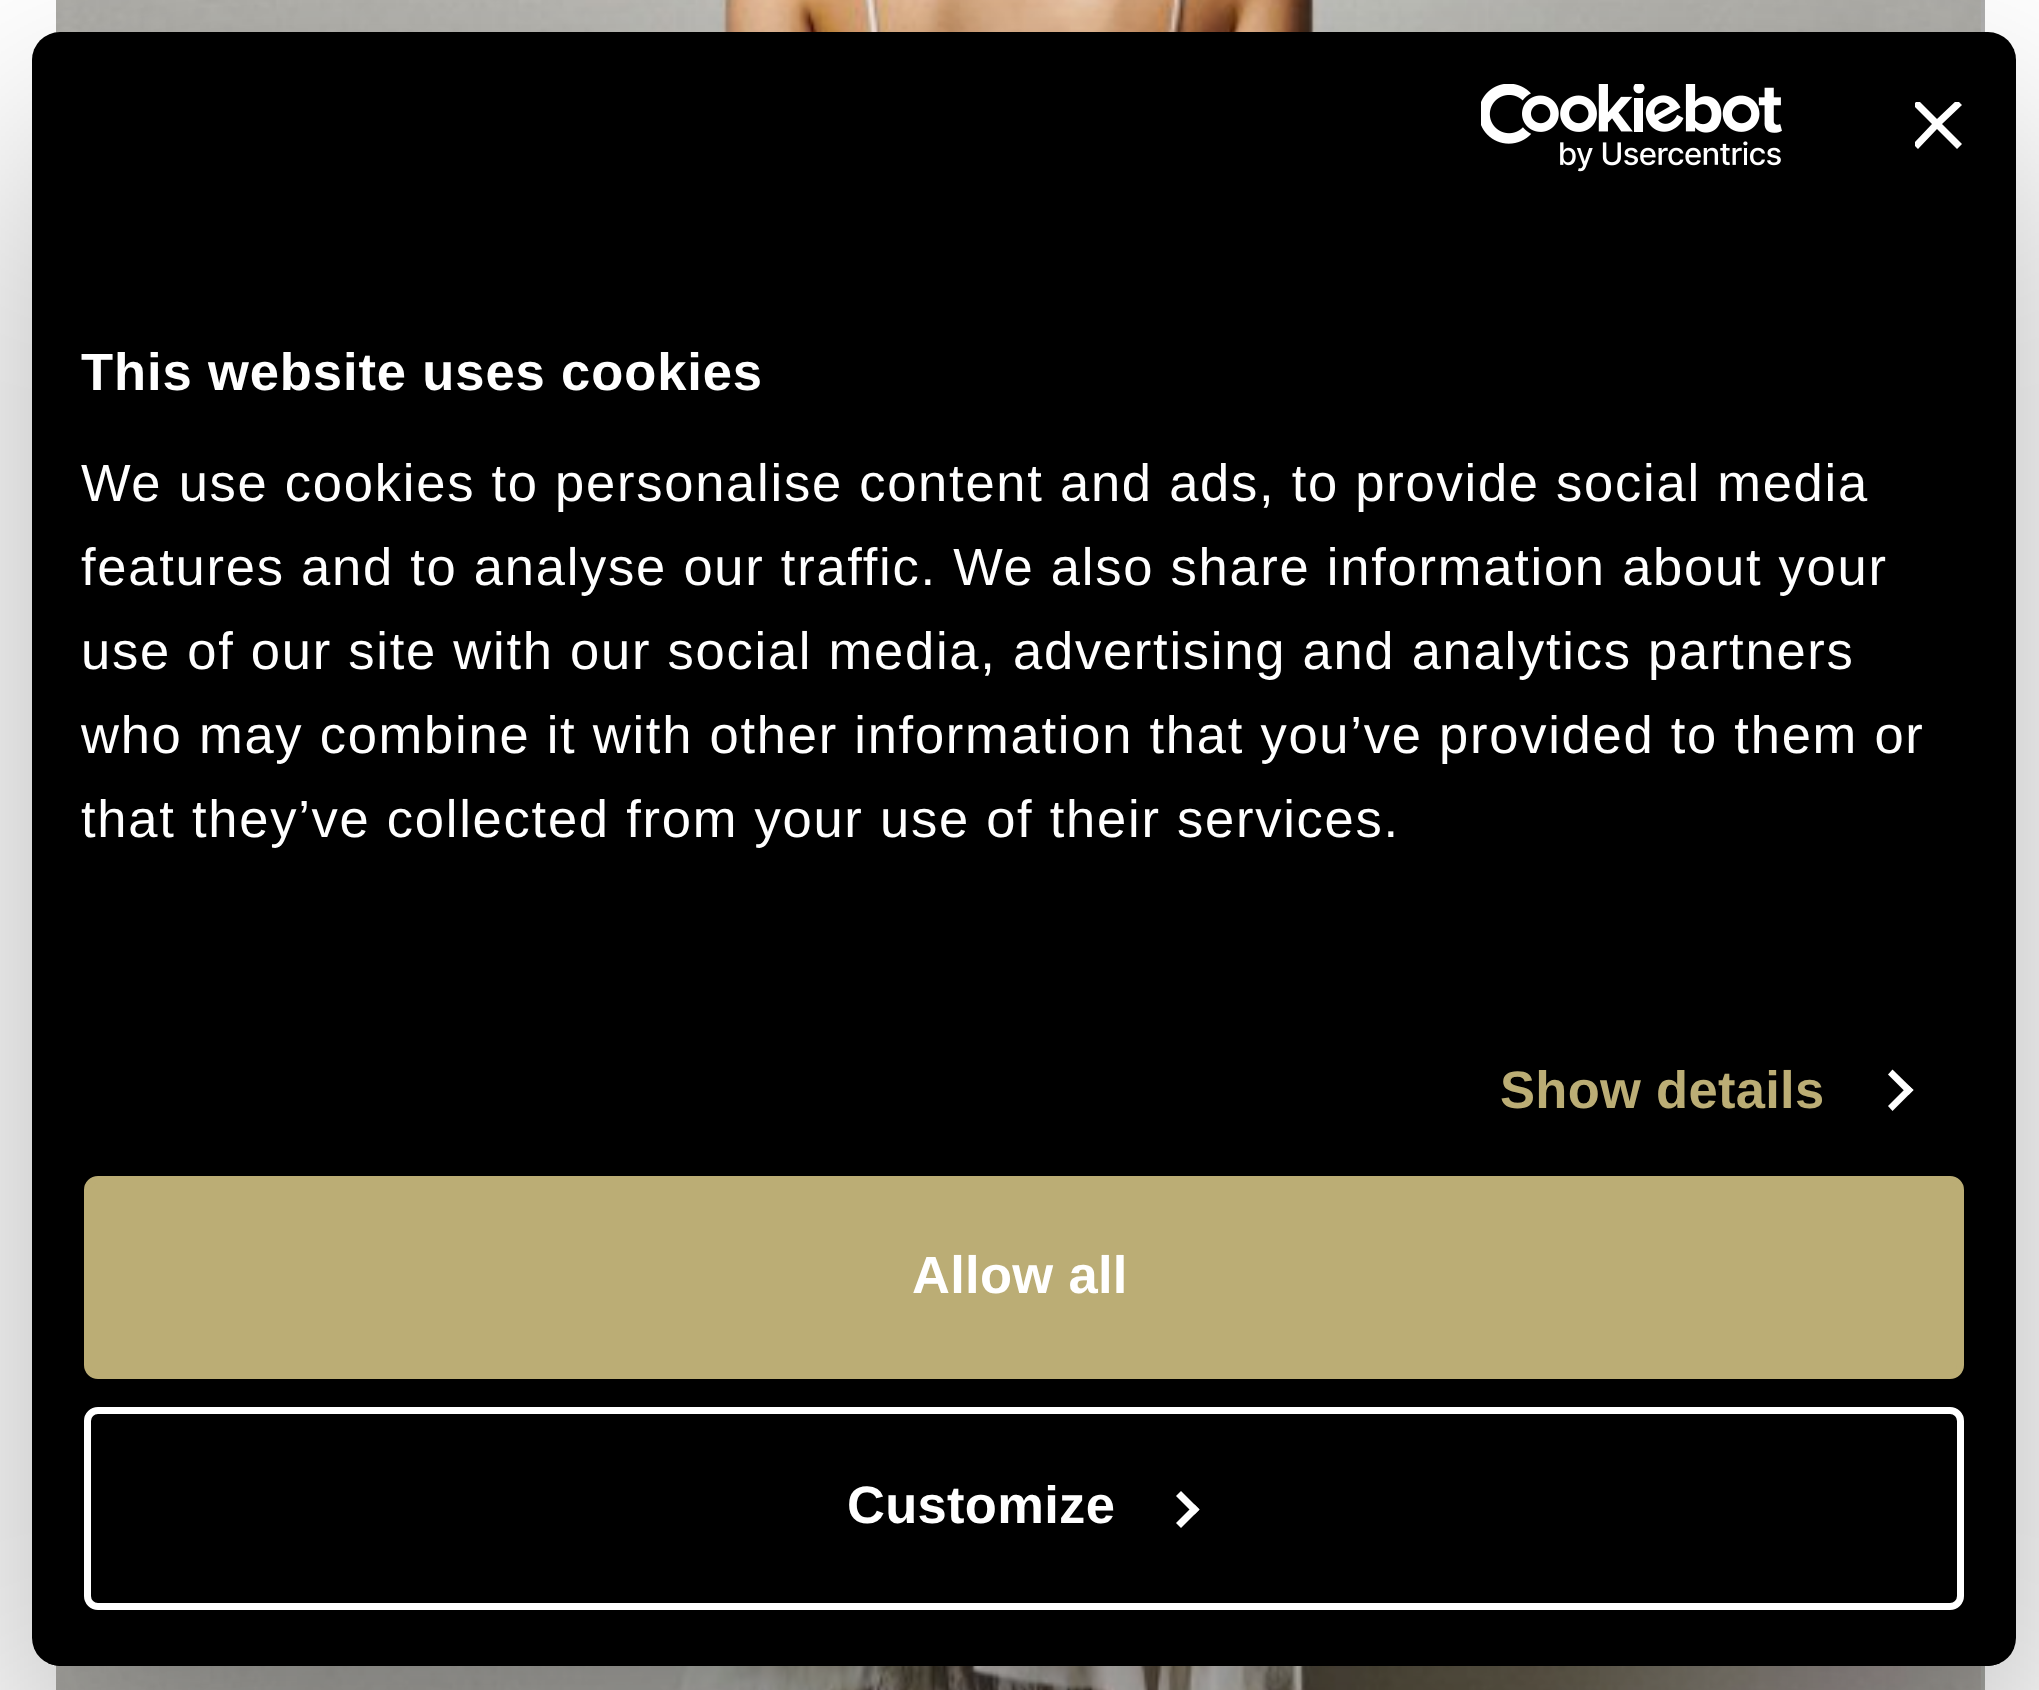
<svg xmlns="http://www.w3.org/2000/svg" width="2039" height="1690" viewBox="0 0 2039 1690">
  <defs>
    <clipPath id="clip1"><path d="M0 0H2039V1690H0ZM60 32H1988C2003.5 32 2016 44.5 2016 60V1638C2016 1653.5 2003.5 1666 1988 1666H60C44.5 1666 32 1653.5 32 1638V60C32 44.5 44.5 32 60 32Z" clip-rule="evenodd"/></clipPath>
    <clipPath id="clip2"><path d="M1915 102h49v49H1915z"/></clipPath>
    <clipPath id="clip3"><rect x="32" y="32" width="1984" height="1634" rx="28"/></clipPath>
  </defs>
  <rect width="100%" height="100%" fill="#fff"/>
  <image x="56" y="0" width="1929" height="1690" href="img/1.png"/>
  <image x="1981" y="0" width="4" height="1690" href="img/2.png"/>
  <g clip-path="url(#clip1)">
    <rect x="32" y="144" width="1984" height="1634" rx="28" fill="#0000004d" filter="blur(119px)"/>
  </g>
  <rect x="32" y="32" width="1984" height="1634" rx="28" fill="#000"/>
  <image x="1481" y="84" width="301" height="88" href="img/3.png"/>
  <g clip-path="url(#clip2)">
    <path d="M1962 105L1957 100L1937 119L1918 100L1913 105L1932 124L1913 144L1918 149L1937 129L1957 149L1962 144L1942 124Z" fill="#fff"/>
  </g>
  <path d="M1892.5 1069.5L1913.5 1090L1908.5 1095L1888 1074.5Z" fill="#fff"/>
  <path d="M1908.5 1085.5L1913.5 1090L1892.5 1111L1888 1106Z" fill="#fff"/>
  <g clip-path="url(#clip3)">
    <path d="M47 1663h1954v3H47z" fill="#000"/>
  </g>
  <rect x="87.5" y="1179.5" width="1873" height="196" rx="10.5" fill="#bbad75" stroke="#bbad75" stroke-width="7"/>
  <rect x="87.5" y="1410.5" width="1873" height="196" rx="10.5" fill="none" stroke="#fff" stroke-width="7"/>
  <path d="M1181 1491L1199.5 1509.5L1194.5 1514.5L1176 1496Z" fill="#fff"/>
  <path d="M1194.5 1504.5L1199.5 1509.5L1181 1528L1176 1523Z" fill="#fff"/>
  <text x="81" y="390" font-family="Liberation Sans" font-size="52.5" font-weight="bold" letter-spacing="0.9" fill="#fff">This website uses cookies</text>
  <g font-family="Liberation Sans" font-size="52.5" letter-spacing="1.75" fill="#fff">
    <text x="81" y="501">We use cookies to personalise content and ads, to provide social media</text>
    <text x="81" y="585">features and to analyse our traffic. We also share information about your</text>
    <text x="81" y="669">use of our site with our social media, advertising and analytics partners</text>
    <text x="81" y="753">who may combine it with other information that you’ve provided to them or</text>
    <text x="81" y="837">that they’ve collected from your use of their services.</text>
  </g>
  <text x="1500" y="1108" font-family="Liberation Sans" font-size="52.5" font-weight="bold" letter-spacing="0.3" fill="#bbad75">Show details</text>
  <g font-family="Liberation Sans" font-size="52.5" font-weight="bold" letter-spacing="0.3" fill="#fff">
    <text x="912" y="1293">Allow all</text>
    <text x="847" y="1523">Customize</text>
  </g>
</svg>
